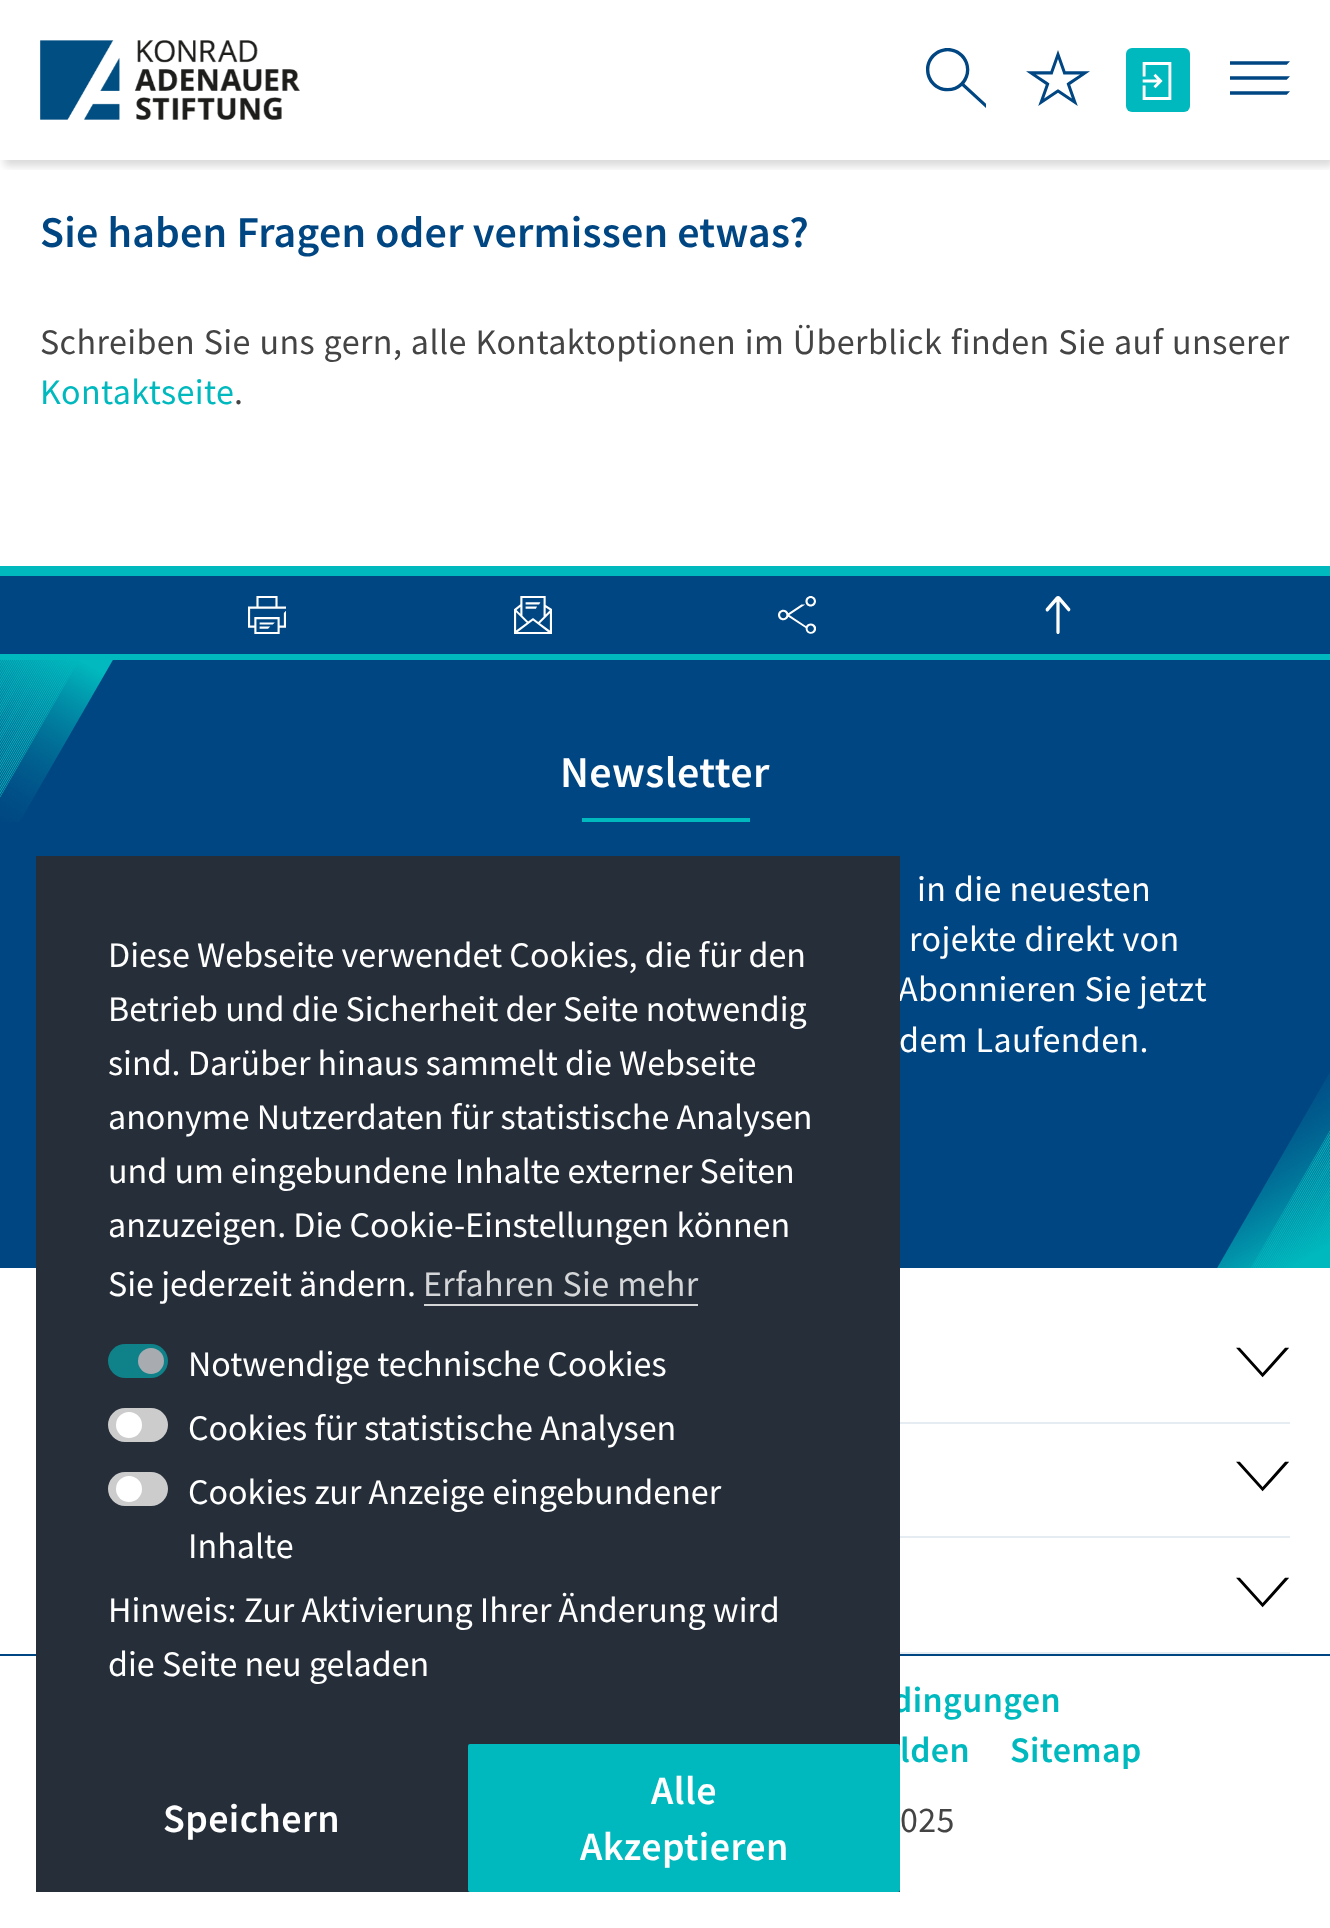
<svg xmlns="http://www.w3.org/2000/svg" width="1330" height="1928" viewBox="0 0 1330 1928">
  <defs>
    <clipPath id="clip1"><path d="M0 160h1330v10H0z"/></clipPath>
  </defs>
  <rect width="100%" height="100%" fill="#fff"/>
  <g clip-path="url(#clip1)">
    <path d="M4 6h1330v160H4z" fill="#00000026" filter="blur(4px)"/>
  </g>
  <image x="40" y="40" width="260" height="80" href="img/1.png"/>
  <image x="926" y="48" width="60" height="60" href="img/2.png"/>
  <image x="1026" y="50" width="64" height="56" href="img/3.png"/>
  <rect x="1126" y="48" width="64" height="64" rx="6" fill="#00b9be"/>
  <image x="1142" y="62" width="30" height="38" href="img/4.png"/>
  <image x="1230" y="61" width="60" height="34" href="img/5.png"/>
  <path d="M0 566h1330v10H0z" fill="#00b9be"/>
  <path d="M0 576h1330v78H0z" fill="#004682"/>
  <path d="M0 654h1330v6H0z" fill="#00b9be"/>
  <image x="248" y="596" width="38" height="38" href="img/6.png"/>
  <image x="514" y="596" width="38" height="38" href="img/7.png"/>
  <image x="778" y="596" width="38" height="38" href="img/8.png"/>
  <image x="1045" y="596" width="26" height="38" href="img/9.png"/>
  <path d="M0 660h1330v608H0z" fill="#004682"/>
  <image x="0" y="660" width="113" height="162" href="img/10.png"/>
  <path d="M582 818h168v4H582z" fill="#00b9be"/>
  <image x="1217" y="1073" width="113" height="195" href="img/11.png"/>
  <path d="M900 1422h390v2H900z" fill="#e5ecf2"/>
  <image x="1236" y="1347" width="53" height="31" href="img/12.png"/>
  <path d="M900 1536h390v2H900z" fill="#e5ecf2"/>
  <image x="1236" y="1461" width="53" height="31" href="img/12.png"/>
  <path d="M900 1652h390v2H900z" fill="#e5ecf2"/>
  <image x="1236" y="1577" width="53" height="31" href="img/12.png"/>
  <path d="M0 1654h1330v2H0z" fill="#004682"/>
  <text x="40" y="247" font-family="Source Sans Pro" font-size="44" font-weight="600" letter-spacing="0.2" fill="#004682">Sie haben Fragen oder vermissen etwas?</text>
  <text x="40" y="354" word-spacing="1" font-family="Source Sans Pro" font-size="36" letter-spacing="0.4" fill="#444">Schreiben Sie uns gern, alle Kontaktoptionen im Überblick finden Sie auf unserer</text>
  <text x="40" y="404" font-family="Source Sans Pro" font-size="36" letter-spacing="0.4" fill="#00b9be">Kontaktseite</text>
  <text x="234" y="404" font-family="Source Sans Pro" font-size="36" letter-spacing="0.4" fill="#444">.</text>
  <text x="560" y="787" font-family="Source Sans Pro" font-size="44" font-weight="600" letter-spacing="0.4" fill="#fff">Newsletter</text>
  <g font-family="Source Sans Pro" font-size="36" letter-spacing="0.4" fill="#fff">
    <text x="917" y="901">in die neuesten</text>
    <text x="909" y="951">rojekte direkt von</text>
    <text x="898" y="1001">Abonnieren Sie jetzt</text>
    <text x="899" y="1052">dem Laufenden.</text>
  </g>
  <g font-family="Source Sans Pro" font-size="36" font-weight="600" letter-spacing="0.4" fill="#00b9be">
    <text x="892" y="1712">dingungen</text>
    <text x="900" y="1762">lden</text>
    <text x="1010" y="1762">Sitemap</text>
  </g>
  <text x="900" y="1832" font-family="Source Sans Pro" font-size="36" letter-spacing="0.4" fill="#444">025</text>
  <path d="M36 856h864v1036H36z" fill="#252e39"/>
  <g font-family="Source Sans Pro" font-size="36" fill="#fff">
    <text x="108" y="967">Diese Webseite verwendet Cookies, die für den</text>
    <text x="108" y="1021">Betrieb und die Sicherheit der Seite notwendig</text>
    <text x="108" y="1075">sind. Darüber hinaus sammelt die Webseite</text>
    <text x="108" y="1129">anonyme Nutzerdaten für statistische Analysen</text>
    <text x="108" y="1183">und um eingebundene Inhalte externer Seiten</text>
    <text x="108" y="1237">anzuzeigen. Die Cookie-Einstellungen können</text>
    <text x="108" y="1296">Sie jederzeit ändern.</text>
  </g>
  <text x="423" y="1296" font-family="Source Sans Pro" font-size="36" letter-spacing="0.4" fill="#d3d5d7">Erfahren Sie mehr</text>
  <path d="M424 1304h274v2H424z" fill="#d3d5d7"/>
  <rect x="108" y="1344" width="60" height="34" rx="17" fill="#0f8189"/>
  <circle cx="151" cy="1361" r="13" fill="#a8abb0"/>
  <text x="188" y="1376" font-family="Source Sans Pro" font-size="36" fill="#fff">Notwendige technische Cookies</text>
  <rect x="108" y="1408" width="60" height="34" rx="17" fill="#ccc"/>
  <circle cx="129" cy="1425" r="13" fill="#fff"/>
  <text x="188" y="1440" font-family="Source Sans Pro" font-size="36" fill="#fff">Cookies für statistische Analysen</text>
  <rect x="108" y="1472" width="60" height="34" rx="17" fill="#ccc"/>
  <circle cx="129" cy="1489" r="13" fill="#fff"/>
  <g font-family="Source Sans Pro" font-size="36" fill="#fff">
    <text x="188" y="1504">Cookies zur Anzeige eingebundener</text>
    <text x="188" y="1558">Inhalte</text>
    <text x="108" y="1622">Hinweis: Zur Aktivierung Ihrer Änderung wird</text>
    <text x="108" y="1676">die Seite neu geladen</text>
  </g>
  <text x="163" y="1832" font-family="Source Sans Pro" font-size="40" font-weight="600" letter-spacing="0.4" fill="#fff">Speichern</text>
  <rect x="468" y="1744" width="432" height="148" rx="2" fill="#00b9be"/>
  <g font-family="Source Sans Pro" font-size="40" font-weight="600" letter-spacing="0.4" fill="#fff">
    <text x="651" y="1804">Alle</text>
    <text x="580" y="1860">Akzeptieren</text>
  </g>
</svg>
